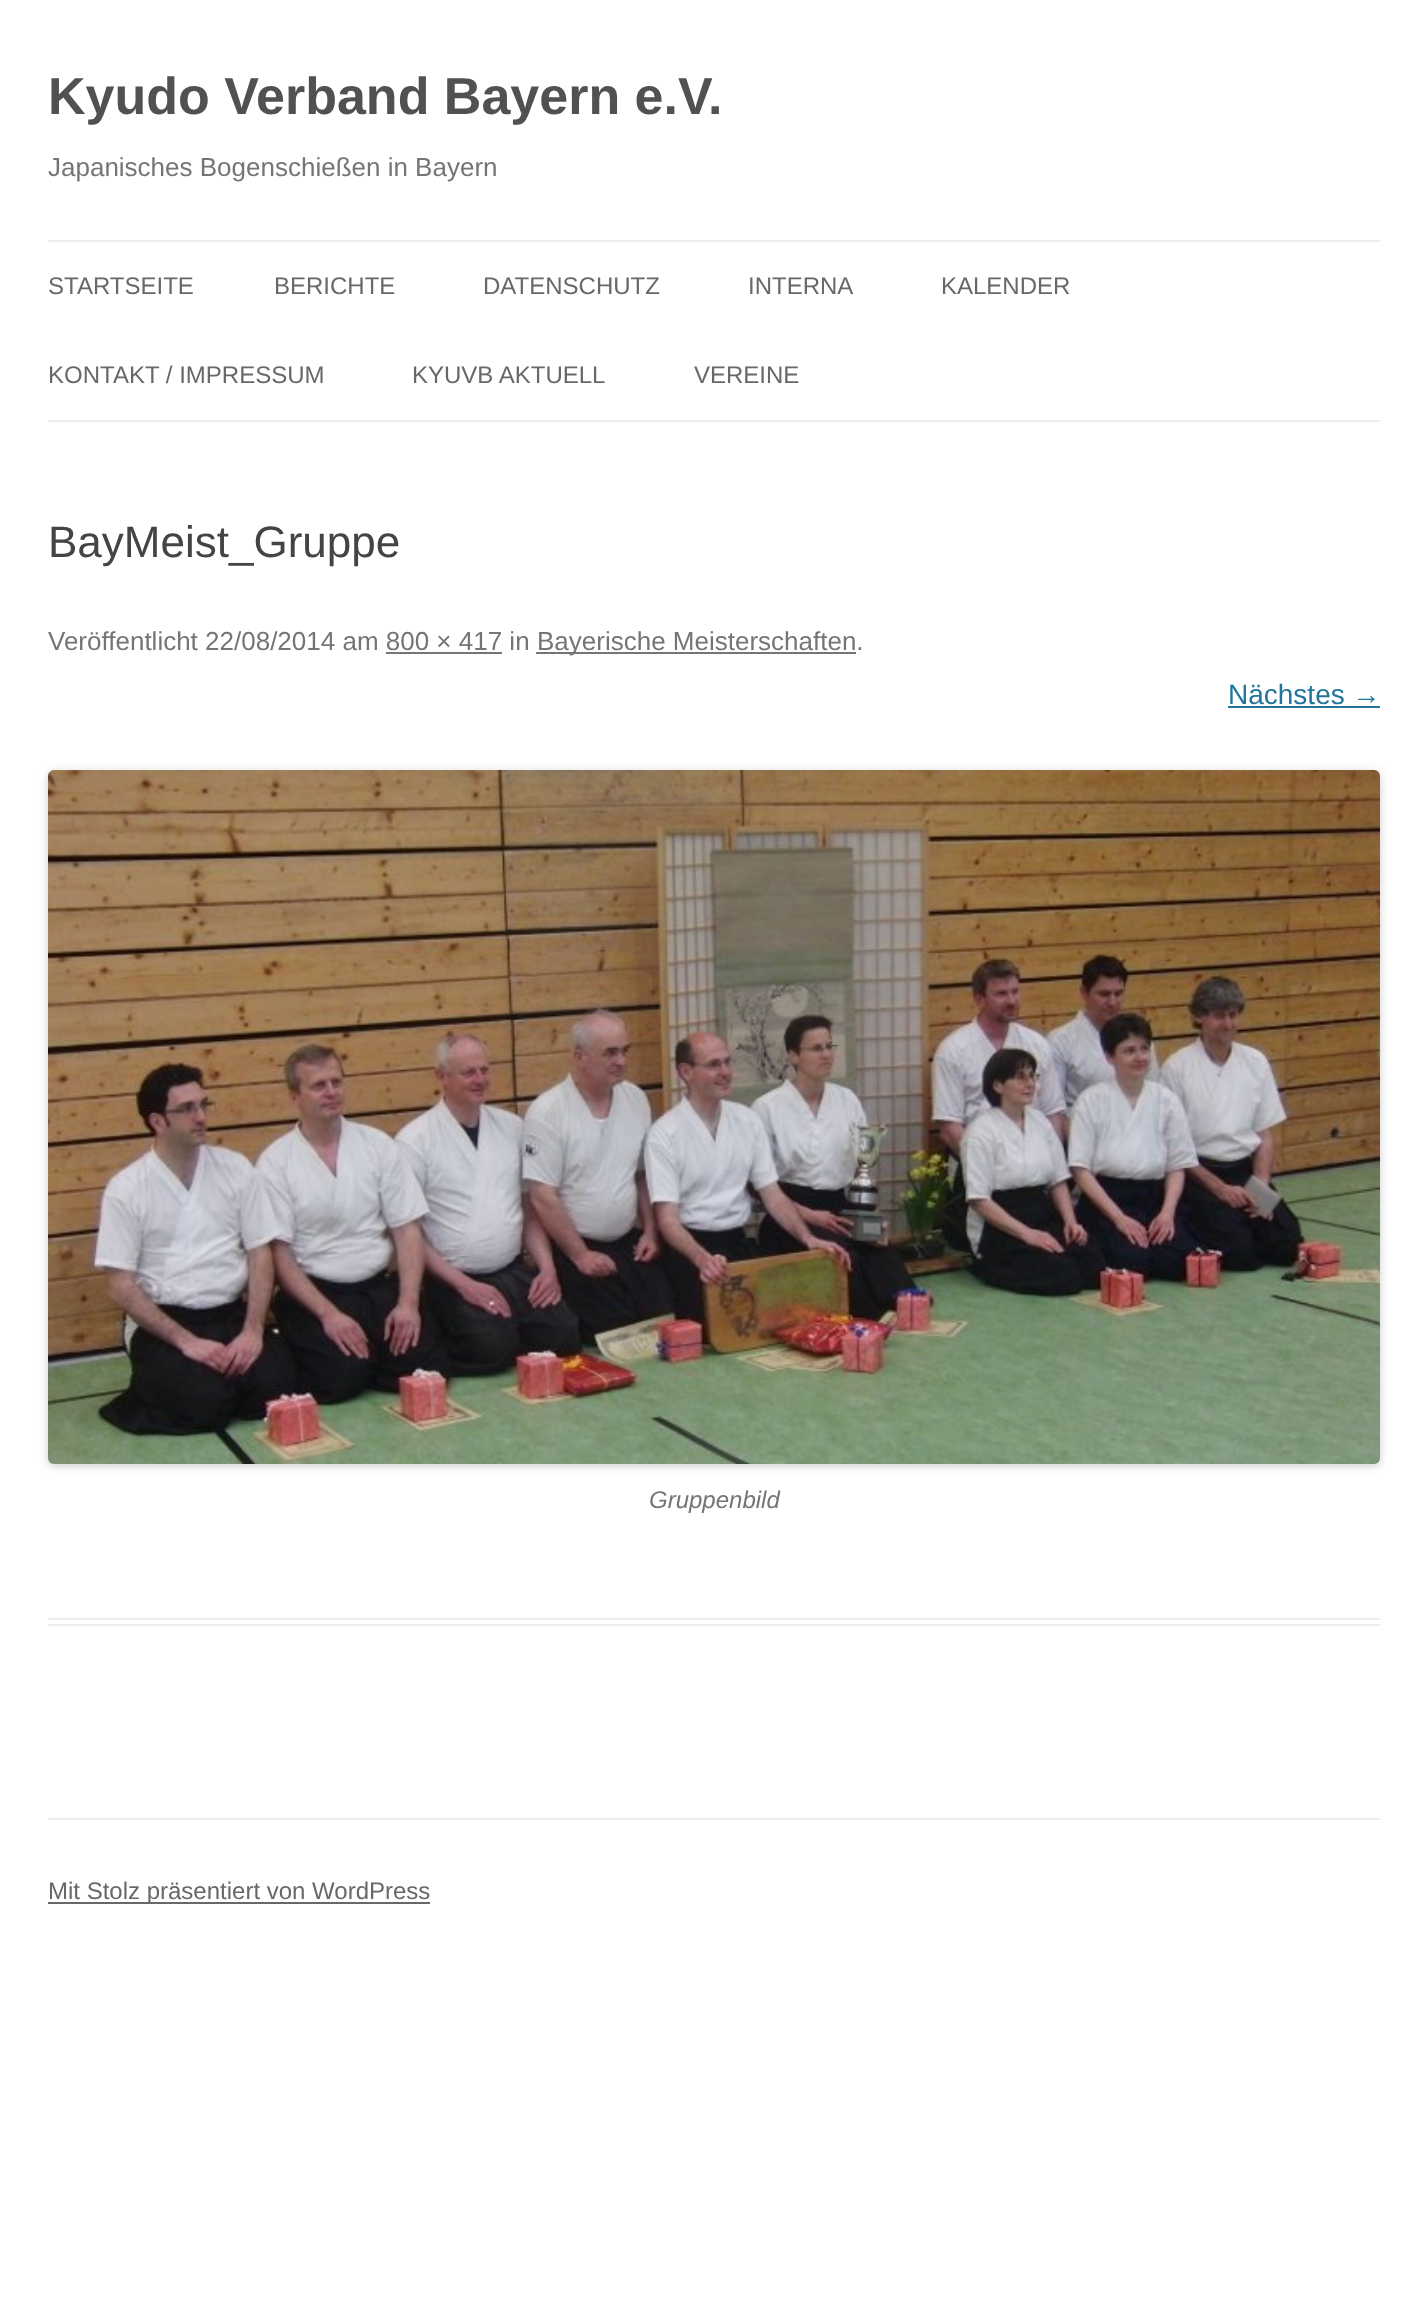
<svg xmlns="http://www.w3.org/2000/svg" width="1428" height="2322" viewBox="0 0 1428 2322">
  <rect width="100%" height="100%" fill="#fff"/>
  <path d="M48 240h1332v2H48z" fill="#ededed"/>
  <path d="M48 420h1332v2H48z" fill="#ededed"/>
  <path d="M48 1618h1332v2H48z" fill="#ededed"/>
  <path d="M48 1624h1332v2H48z" fill="#ededed"/>
  <path d="M536 652h320v2H536z" fill="#757575"/>
  <path d="M386 652h116v2H386z" fill="#757575"/>
  <path d="M1228 706h152v2H1228z" fill="#21759b"/>
  <rect x="48" y="772" width="1332" height="694" rx="6" fill="#00000033" filter="blur(4px)"/>
  <image x="48" y="770" width="1332" height="694" href="img/1.png"/>
  <path d="M48 1818h1332v2H48z" fill="#ededed"/>
  <path d="M48 1902h382v2H48z" fill="#686868"/>
  <text x="48" y="114" font-family="Liberation Sans" font-size="52" font-weight="bold" fill="#515151">Kyudo Verband Bayern e.V.</text>
  <text x="48" y="176" font-family="Liberation Sans" font-size="26" fill="#757575">Japanisches Bogenschießen in Bayern</text>
  <g font-family="Liberation Sans" font-size="24" fill="#686868">
    <text x="48" y="294">STARTSEITE</text>
    <text x="274" y="294">BERICHTE</text>
    <text x="483" y="294">DATENSCHUTZ</text>
    <text x="748" y="294">INTERNA</text>
    <text x="941" y="294">KALENDER</text>
    <text x="48" y="383">KONTAKT / IMPRESSUM</text>
    <text x="412" y="383">KYUVB AKTUELL</text>
    <text x="694" y="383">VEREINE</text>
  </g>
  <text x="48" y="557" font-family="Liberation Sans" font-size="44" fill="#444">BayMeist_Gruppe</text>
  <g font-family="Liberation Sans" font-size="26" fill="#757575">
    <text x="48" y="650">Veröffentlicht 22/08/2014 am 800 × 417 in</text>
    <text x="537" y="650">Bayerische Meisterschaften.</text>
  </g>
  <text x="1228" y="704" font-family="Liberation Sans" font-size="28" fill="#21759b">Nächstes →</text>
  <text x="649" y="1508" font-family="Liberation Sans" font-size="24" font-style="italic" fill="#757575">Gruppenbild</text>
  <text x="48" y="1899" font-family="Liberation Sans" font-size="24" fill="#686868">Mit Stolz präsentiert von WordPress</text>
</svg>
